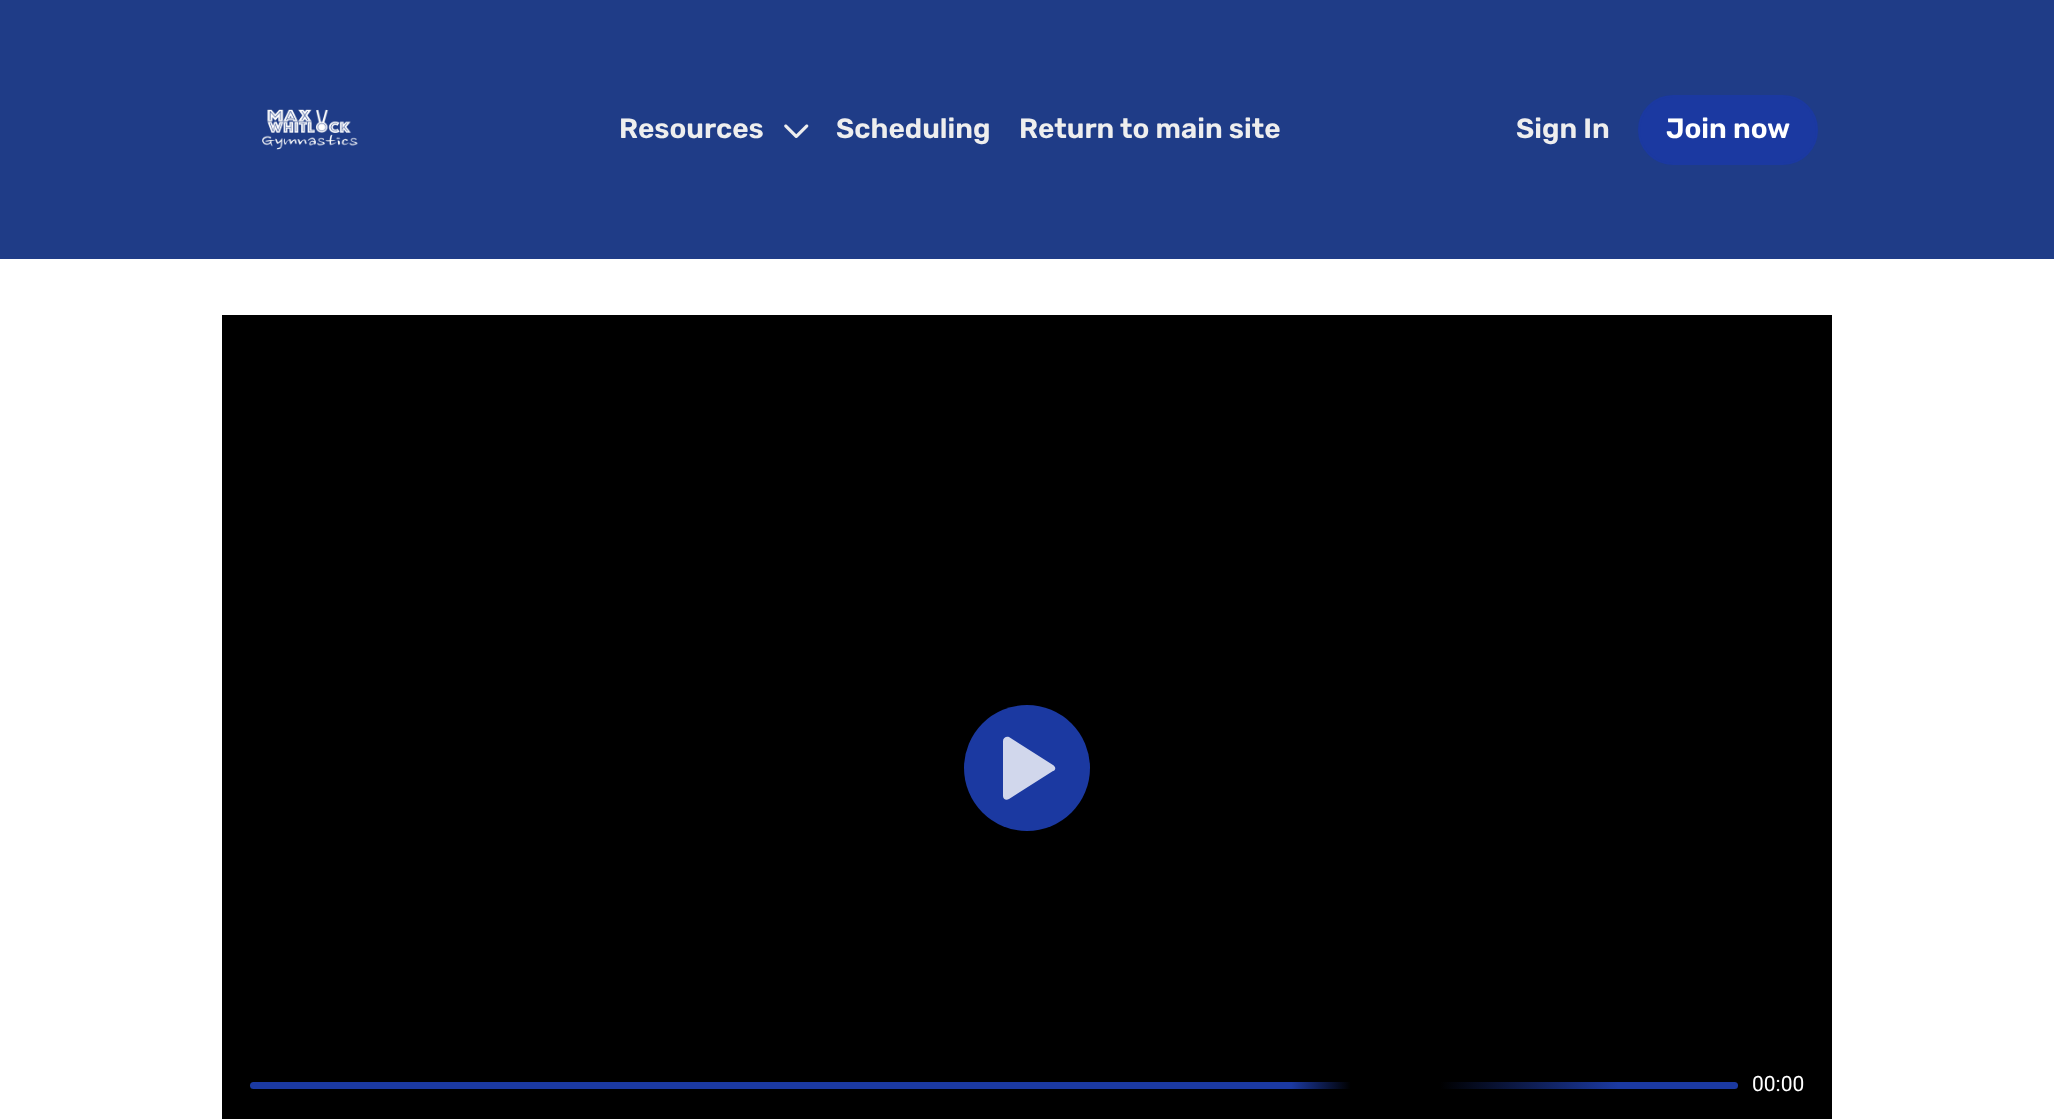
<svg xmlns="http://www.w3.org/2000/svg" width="2054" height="1119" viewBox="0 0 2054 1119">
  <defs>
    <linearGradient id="g1" gradientUnits="userSpaceOnUse" x1="250" y1="1089" x2="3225" y2="1089"><stop offset="0.35" stop-color="#1b39a1"/><stop offset="0.37" stop-color="#000"/><stop offset="0.4" stop-color="#000"/><stop offset="0.46" stop-color="#1b39a1"/><stop offset="1" stop-color="#1b39a1"/></linearGradient>
  </defs>
  <rect width="100%" height="100%" fill="#fff"/>
  <path d="M0 0h2054v259H0z" fill="#1f3c87"/>
  <image x="262" y="109" width="96" height="41" href="img/1.png"/>
  <image x="784" y="124" width="25" height="14" href="img/2.png"/>
  <rect x="1639" y="96" width="178" height="68" rx="34" fill="#1b39a1" stroke="#1b39a1" stroke-width="2"/>
  <path d="M222 315h1610v804H222z" fill="#000"/>
  <circle cx="1027" cy="768" r="63" fill="#1b39a1"/>
  <path d="M1009 737C1006 736 1003 738 1003 741V796C1003 799 1006 801 1009 799L1053 771C1056 770 1056 767 1053 765Z" fill="#d1d7ec"/>
  <rect x="250" y="1082" width="1488" height="7" rx="3.5" fill="url(#g1)"/>
  <g font-family="Rubik" font-size="28" font-weight="600" fill="#eee">
    <text x="619" y="138">Resources</text>
    <text x="836" y="138">Scheduling</text>
    <text x="1019" y="138">Return to main site</text>
    <text x="1516" y="138">Sign In</text>
  </g>
  <text x="1666" y="138" font-family="Rubik" font-size="28" font-weight="600" fill="#fff">Join now</text>
  <text x="1752" y="1091" font-family="Roboto" font-size="21" fill="#fff">00:00</text>
</svg>
